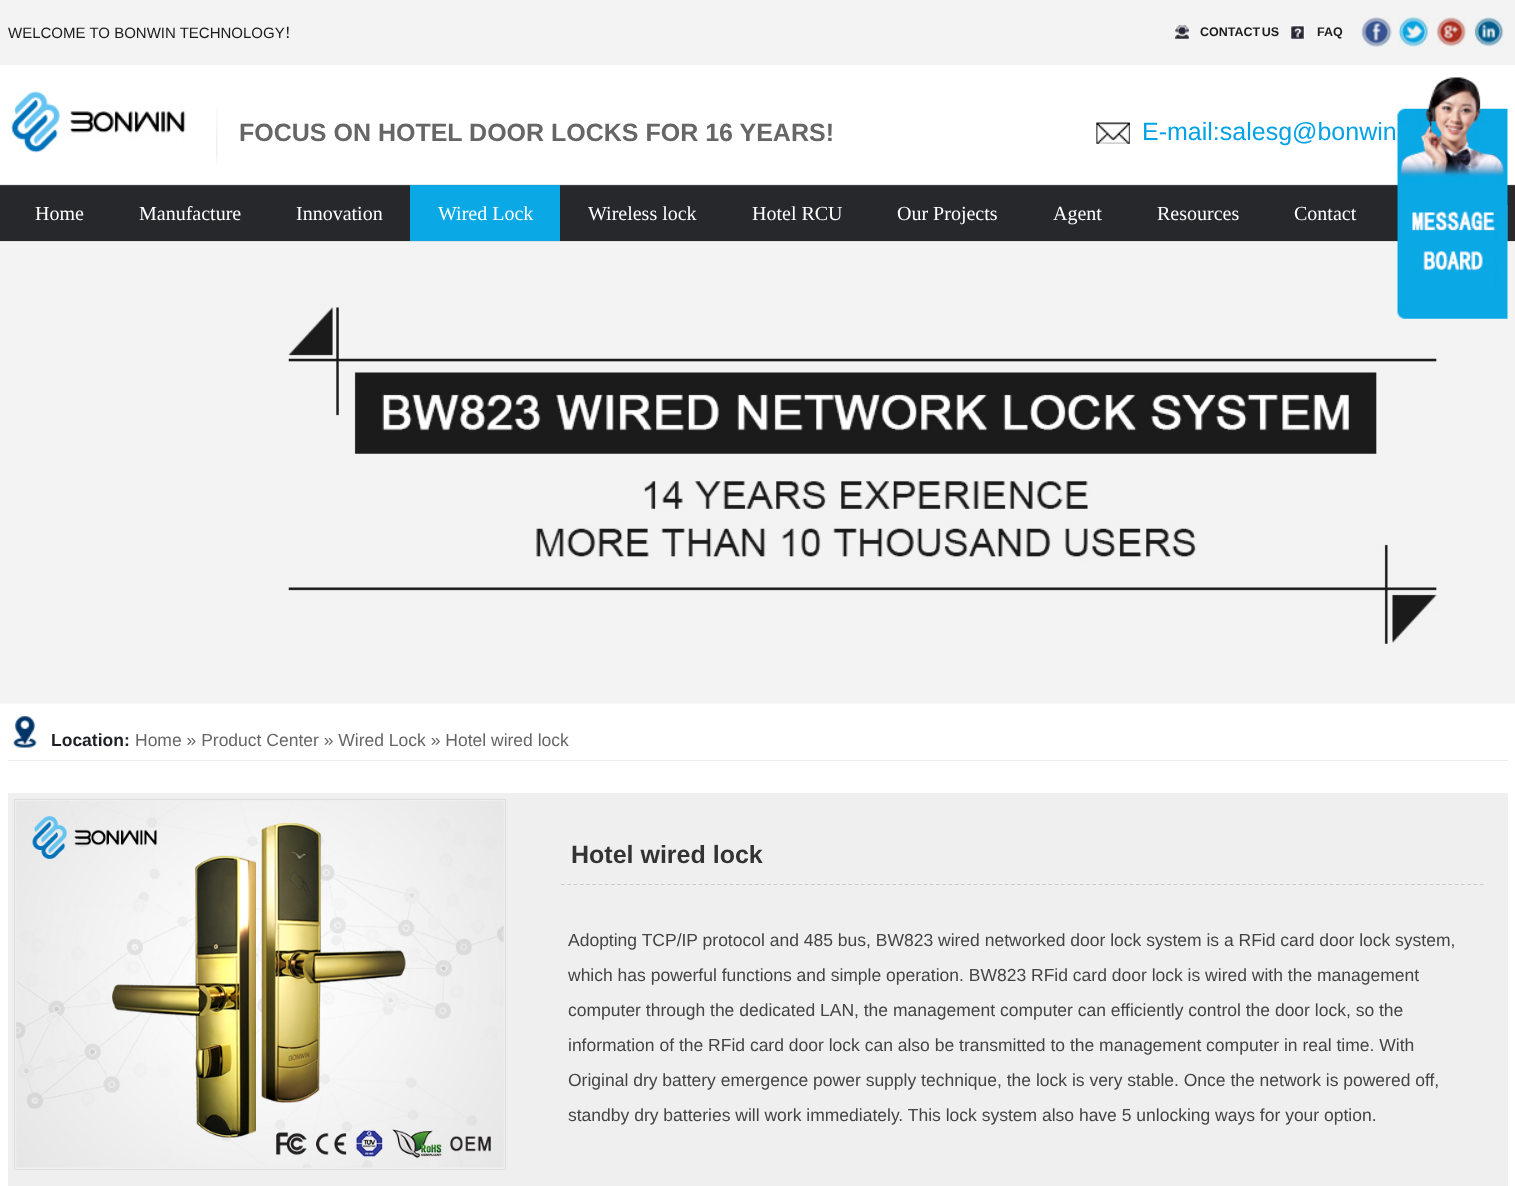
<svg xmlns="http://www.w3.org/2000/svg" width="1515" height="1186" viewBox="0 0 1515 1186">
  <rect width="100%" height="100%" fill="#fff"/>
  <image x="0" y="0" width="1515" height="242" href="img/1.png"/>
  <image x="1175" y="25" width="14" height="14" href="img/2.png"/>
  <image x="1291" y="25" width="14" height="14" href="img/3.png"/>
  <image x="1361" y="17" width="31" height="30" href="img/4.png"/>
  <image x="1398" y="17" width="31" height="30" href="img/5.png"/>
  <image x="1436" y="17" width="31" height="30" href="img/6.png"/>
  <image x="1474" y="17" width="30" height="30" href="img/7.png"/>
  <image x="11" y="91" width="175" height="62" href="img/8.png"/>
  <image x="216" y="107" width="2" height="57" href="img/9.png"/>
  <image x="1096" y="122" width="34" height="22" href="img/10.png"/>
  <path d="M410 185h150v56H410z" fill="#0aa8e5"/>
  <image x="1507" y="205" width="1" height="36" href="img/11.png"/>
  <image x="0" y="241" width="1515" height="463" href="img/13.png"/>
  <image x="1397" y="77" width="111" height="242" href="img/12.png"/>
  <image x="13" y="716" width="24" height="32" href="img/14.png"/>
  <path d="M8 760h1500v1H8z" fill="#ececec"/>
  <path d="M8 793h1500v393H8z" fill="#efefef"/>
  <path d="M14.5 799.5h491v370H14.5z" fill="none" stroke="#ddd"/>
  <image x="16" y="801" width="488" height="367" href="img/15.png"/>
  <path d="M561 884.5H1484" fill="none" stroke="#ccc" stroke-width="1.2" stroke-dasharray="3.75 2.5"/>
  <text x="8" y="38" font-family="Liberation Sans" font-size="15" fill="#1b1b1b">WELCOME TO BONWIN TECHNOLOGY</text>
  <text x="284" y="38" font-family="Noto Sans CJK SC" font-size="15" fill="#1b1b1b">！</text>
  <g font-family="Liberation Sans" font-size="12.5" font-weight="bold" fill="#1b1b1b">
    <text x="1200" y="36" word-spacing="-2">CONTACT US</text>
    <text x="1317" y="36">FAQ</text>
  </g>
  <text x="239" y="141" font-family="Liberation Sans" font-size="25" font-weight="bold" fill="#666">FOCUS ON HOTEL DOOR LOCKS FOR 16 YEARS!</text>
  <text x="1142" y="140" font-family="Liberation Sans" font-size="25" fill="#03a1e5">E-mail:salesg@bonwin</text>
  <g font-family="Liberation Serif" font-size="20" fill="#fff">
    <text x="35" y="220">Home</text>
    <text x="139" y="220">Manufacture</text>
    <text x="296" y="220">Innovation</text>
    <text x="438" y="220">Wired Lock</text>
    <text x="588" y="220">Wireless lock</text>
    <text x="752" y="220">Hotel RCU</text>
    <text x="897" y="220">Our Projects</text>
    <text x="1053" y="220">Agent</text>
    <text x="1157" y="220">Resources</text>
    <text x="1294" y="220">Contact</text>
  </g>
  <text x="51" y="746" font-family="Liberation Sans" font-size="17.5" font-weight="bold" fill="#1e2026">Location:</text>
  <text x="135" y="746" font-family="Liberation Sans" font-size="17.5" fill="#666">Home » Product Center » Wired Lock » Hotel wired lock</text>
  <text x="571" y="863" font-family="Liberation Sans" font-size="25" font-weight="bold" fill="#333">Hotel wired lock</text>
  <g font-family="Liberation Sans" font-size="17.5" fill="#444">
    <text x="568" y="946">Adopting TCP/IP protocol and 485 bus, BW823 wired networked door lock system is a RFid card door lock system,</text>
    <text x="568" y="981">which has powerful functions and simple operation. BW823 RFid card door lock is wired with the management</text>
    <text x="568" y="1016">computer through the dedicated LAN, the management computer can efficiently control the door lock, so the</text>
    <text x="568" y="1051">information of the RFid card door lock can also be transmitted to the management computer in real time. With</text>
    <text x="568" y="1086">Original dry battery emergence power supply technique, the lock is very stable. Once the network is powered off,</text>
    <text x="568" y="1121">standby dry batteries will work immediately. This lock system also have 5 unlocking ways for your option.</text>
  </g>
</svg>
